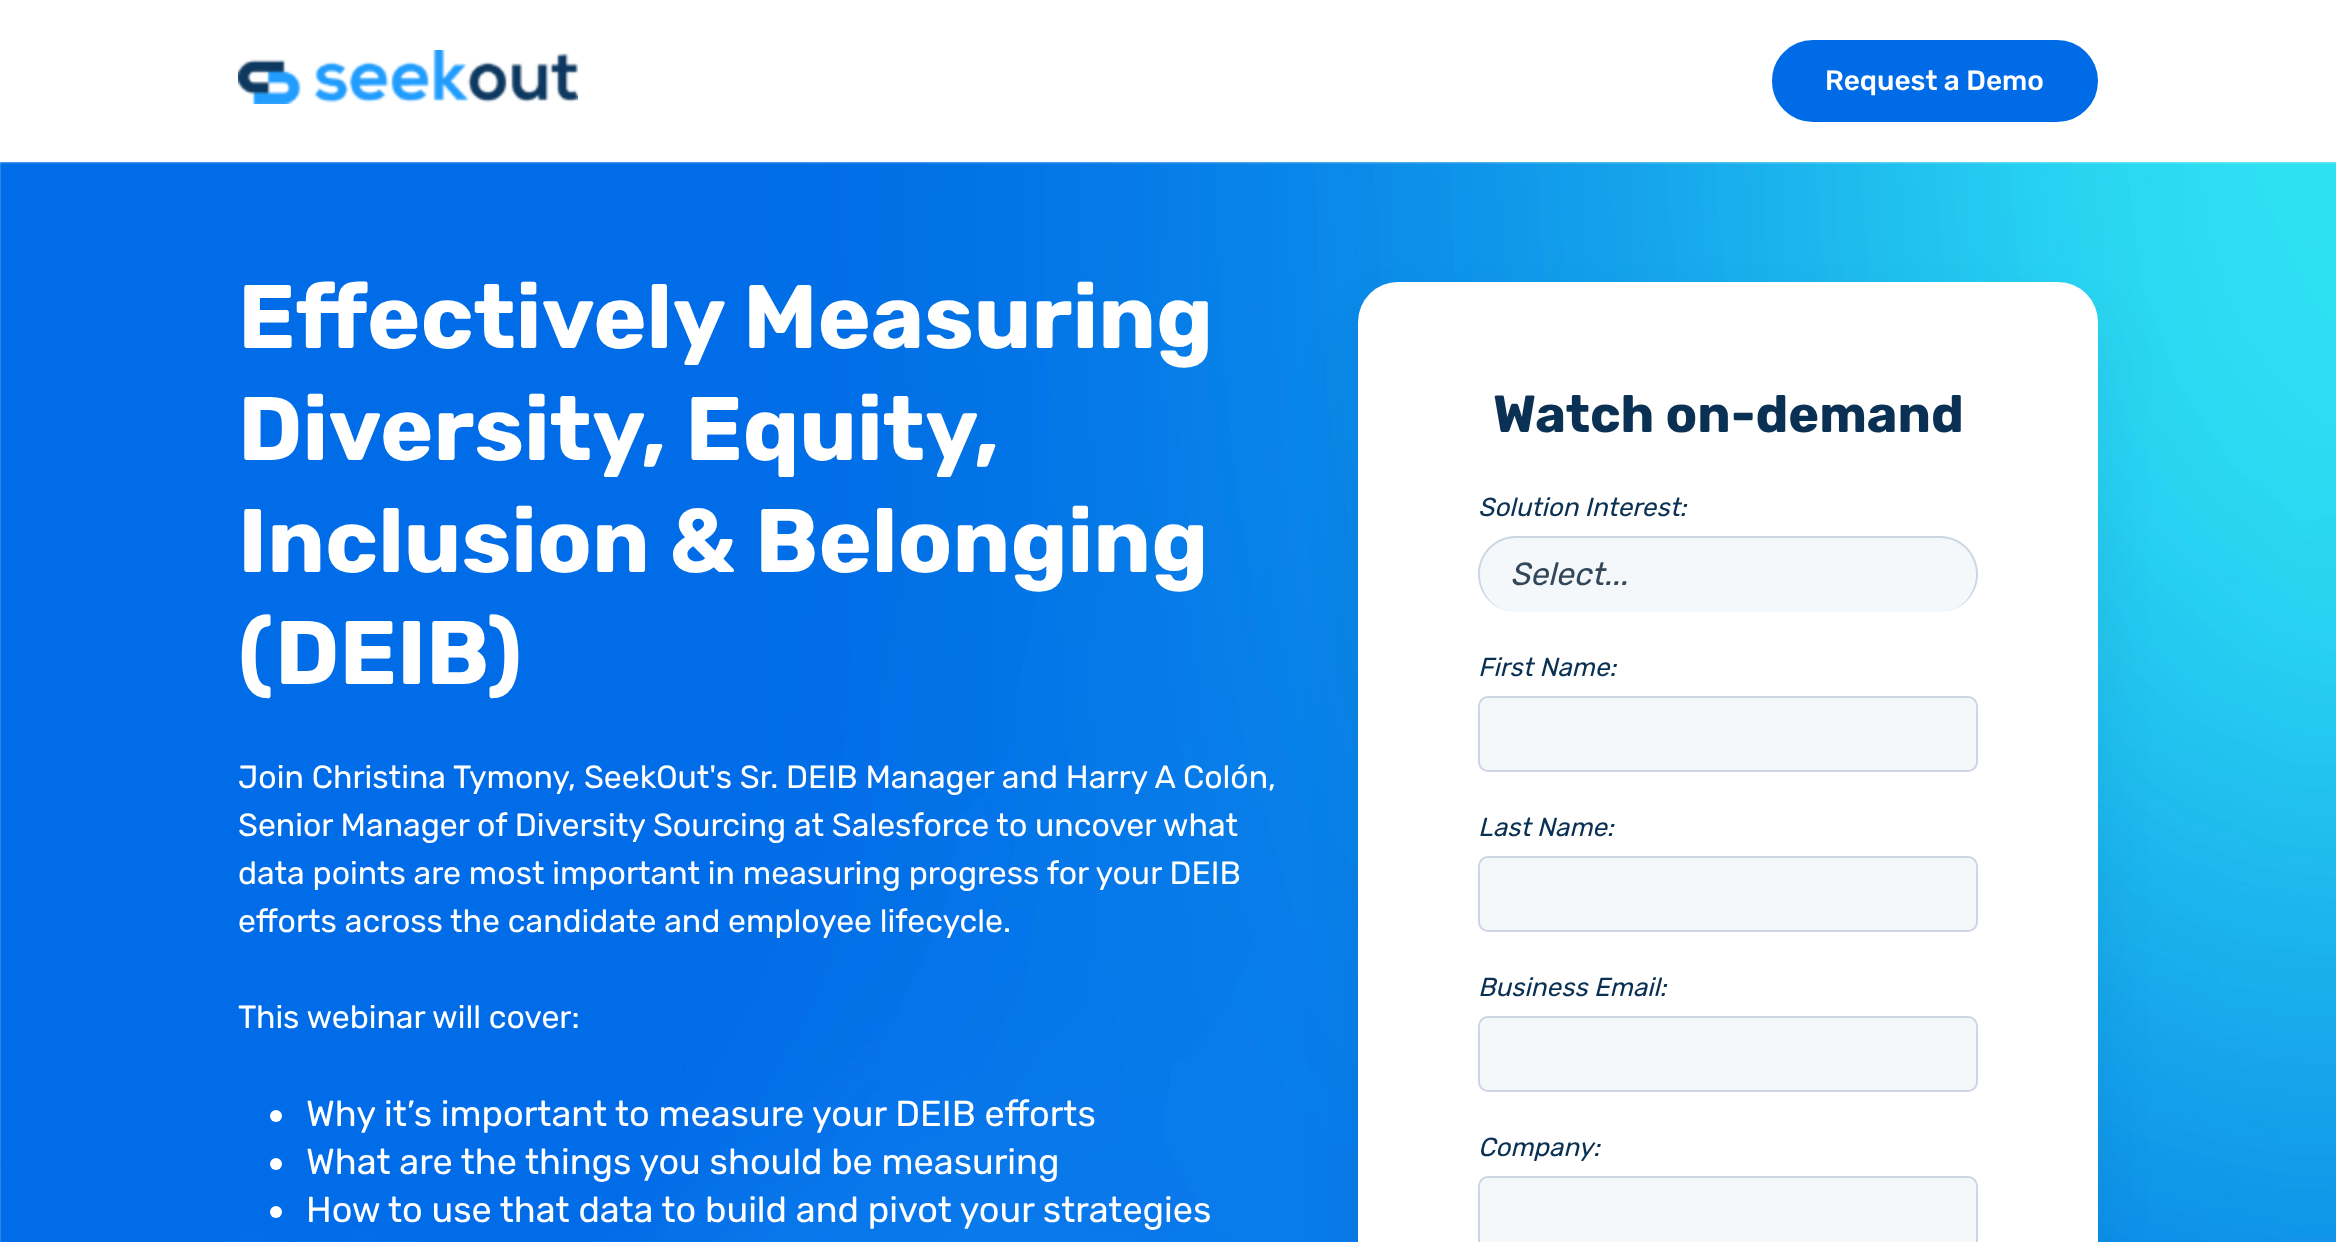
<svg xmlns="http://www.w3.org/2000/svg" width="2336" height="1242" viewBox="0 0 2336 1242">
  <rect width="100%" height="100%" fill="#fff"/>
  <image x="238" y="50" width="340" height="54" href="img/1.png"/>
  <rect x="1773" y="41" width="324" height="80" rx="40" fill="#006be6" stroke="#006be6" stroke-width="2"/>
  <image x="0" y="162" width="2336" height="1080" href="img/2.png"/>
  <circle cx="276" cy="1116" r="6" fill="#fff"/>
  <circle cx="276" cy="1164" r="6" fill="#fff"/>
  <circle cx="276" cy="1212" r="6" fill="#fff"/>
  <rect x="1358" y="312" width="740" height="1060" rx="40" fill="#0000000d" filter="blur(30px)"/>
  <rect x="1358" y="282" width="740" height="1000" rx="40" fill="#fff"/>
  <rect x="1478" y="536" width="500" height="76" rx="38" fill="#f5f8fa"/>
  <path d="M1516 536H1940C1961 536 1978 553 1978 574C1978 595 1961 612 1940 612H1516C1495 612 1478 595 1478 574C1478 553 1495 536 1516 536ZM1516 538H1940C1960 538 1976 554 1976 574C1976 595 1960 612 1940 612H1516C1496 612 1480 595 1480 574C1480 554 1496 538 1516 538Z" fill="#cbd6e2" fill-rule="evenodd"/>
  <rect x="1479" y="697" width="498" height="74" rx="9" fill="#f5f8fa" stroke="#cbd6e2" stroke-width="2"/>
  <rect x="1479" y="857" width="498" height="74" rx="9" fill="#f5f8fa" stroke="#cbd6e2" stroke-width="2"/>
  <rect x="1479" y="1017" width="498" height="74" rx="9" fill="#f5f8fa" stroke="#cbd6e2" stroke-width="2"/>
  <rect x="1479" y="1177" width="498" height="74" rx="9" fill="#f5f8fa" stroke="#cbd6e2" stroke-width="2"/>
  <text x="1825" y="90" font-family="Rubik" font-size="28" font-weight="500" fill="#fff">Request a Demo</text>
  <g font-family="Rubik" font-size="90" font-weight="bold" fill="#fff">
    <text x="238" y="348">Effectively Measuring</text>
    <text x="238" y="460">Diversity, Equity,</text>
    <text x="238" y="572">Inclusion &amp; Belonging</text>
    <text x="238" y="684">(DEIB)</text>
  </g>
  <g font-family="Rubik" font-size="32" fill="#fff">
    <text x="238" y="788">Join Christina Tymony, SeekOut's Sr. DEIB Manager and Harry A Colón,</text>
    <text x="238" y="836">Senior Manager of Diversity Sourcing at Salesforce to uncover what</text>
    <text x="238" y="884">data points are most important in measuring progress for your DEIB</text>
    <text x="238" y="932">efforts across the candidate and employee lifecycle.</text>
    <text x="238" y="1028">This webinar will cover:</text>
  </g>
  <g font-family="Rubik" font-size="36" fill="#fff">
    <text x="306" y="1126">Why it’s important to measure your DEIB efforts</text>
    <text x="306" y="1174">What are the things you should be measuring</text>
    <text x="306" y="1222">How to use that data to build and pivot your strategies</text>
  </g>
  <text x="1493" y="432" font-family="Rubik" font-size="52" font-weight="bold" fill="#0a3053">Watch on-demand</text>
  <text x="1478" y="516" font-family="Rubik" font-size="26" font-style="italic" fill="#0a3053">Solution Interest:</text>
  <text x="1510" y="585" font-family="Rubik" font-size="32" font-style="italic" fill="#33475b">Select...</text>
  <g font-family="Rubik" font-size="26" font-style="italic" fill="#0a3053">
    <text x="1478" y="676">First Name:</text>
    <text x="1478" y="836">Last Name:</text>
    <text x="1478" y="996">Business Email:</text>
    <text x="1478" y="1156">Company:</text>
  </g>
</svg>
